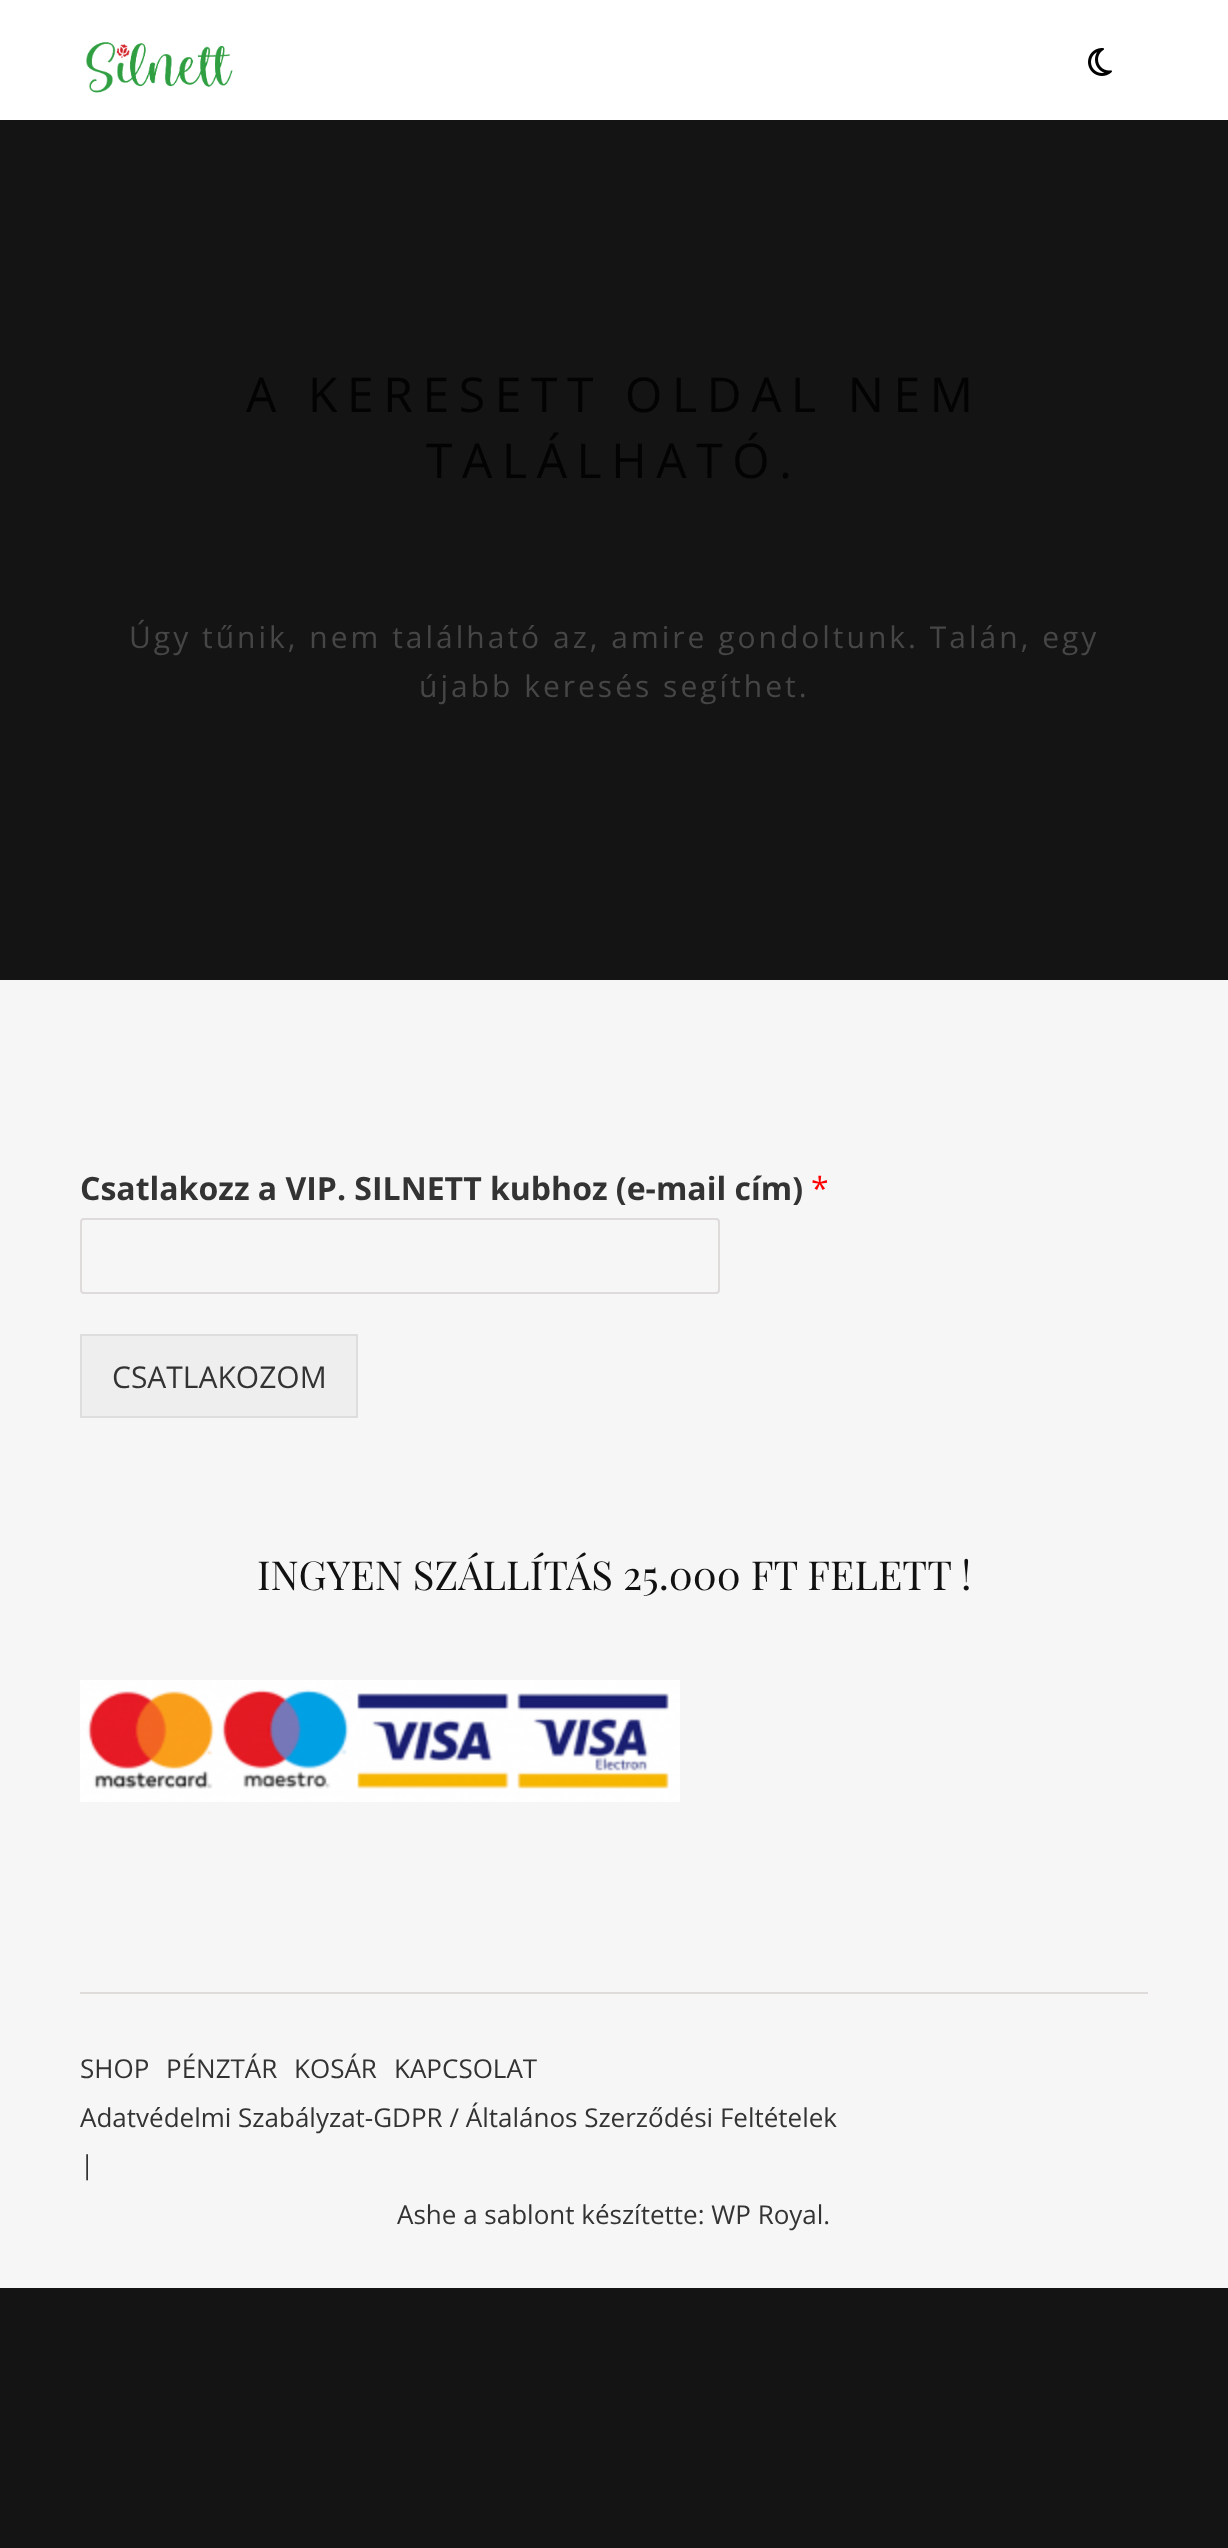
<svg xmlns="http://www.w3.org/2000/svg" width="1228" height="2548" viewBox="0 0 1228 2548">
  <rect width="100%" height="100%" fill="#141414"/>
  <path d="M0 0h1228v120H0z" fill="#fff"/>
  <image x="86" y="42" width="147" height="51" href="img/1.png"/>
  <image x="1088" y="48" width="24" height="28" href="img/2.png"/>
  <path d="M0 980h1228v1308H0z" fill="#f6f6f6"/>
  <path d="M80 1992h1068v2H80z" fill="#e0dbdb"/>
  <rect x="81" y="1219" width="638" height="74" rx="3" fill="none" stroke="#e0dbdb" stroke-width="2"/>
  <path d="M81 1335h276v82H81z" fill="#eee" stroke="#ddd" stroke-width="2"/>
  <image x="80" y="1680" width="600" height="122" href="img/3.png"/>
  <g font-family="Open Sans" font-size="48" letter-spacing="9.6" fill="#030303">
    <text x="246" y="412">A KERESETT OLDAL NEM</text>
    <text x="426" y="478">TALÁLHATÓ.</text>
  </g>
  <g font-family="Open Sans" font-size="30" letter-spacing="3" fill="#464646">
    <text x="129" y="648">Úgy tűnik, nem található az, amire gondoltunk. Talán, egy</text>
    <text x="419" y="697">újabb keresés segíthet.</text>
  </g>
  <text x="80" y="1200" font-family="Open Sans" font-size="32" font-weight="bold" fill="#333">Csatlakozz a VIP. SILNETT kubhoz (e-mail cím)</text>
  <text x="811" y="1200" font-family="Open Sans" font-size="32" fill="#f00">*</text>
  <text x="112" y="1388" font-family="Open Sans" font-size="30" fill="#333">CSATLAKOZOM</text>
  <text x="257" y="1590" font-family="Playfair Display" font-size="40" fill="#111">INGYEN SZÁLLÍTÁS 25.000 FT FELETT !</text>
  <g font-family="Open Sans" font-size="26" fill="#333">
    <text x="80" y="2078">SHOP</text>
    <text x="166" y="2078">PÉNZTÁR</text>
    <text x="294" y="2078">KOSÁR</text>
    <text x="394" y="2078">KAPCSOLAT</text>
    <text x="80" y="2127">Adatvédelmi Szabályzat-GDPR / Általános Szerződési Feltételek</text>
    <text x="80" y="2174">|</text>
    <text x="397" y="2224">Ashe a sablont készítette: WP Royal.</text>
  </g>
</svg>
